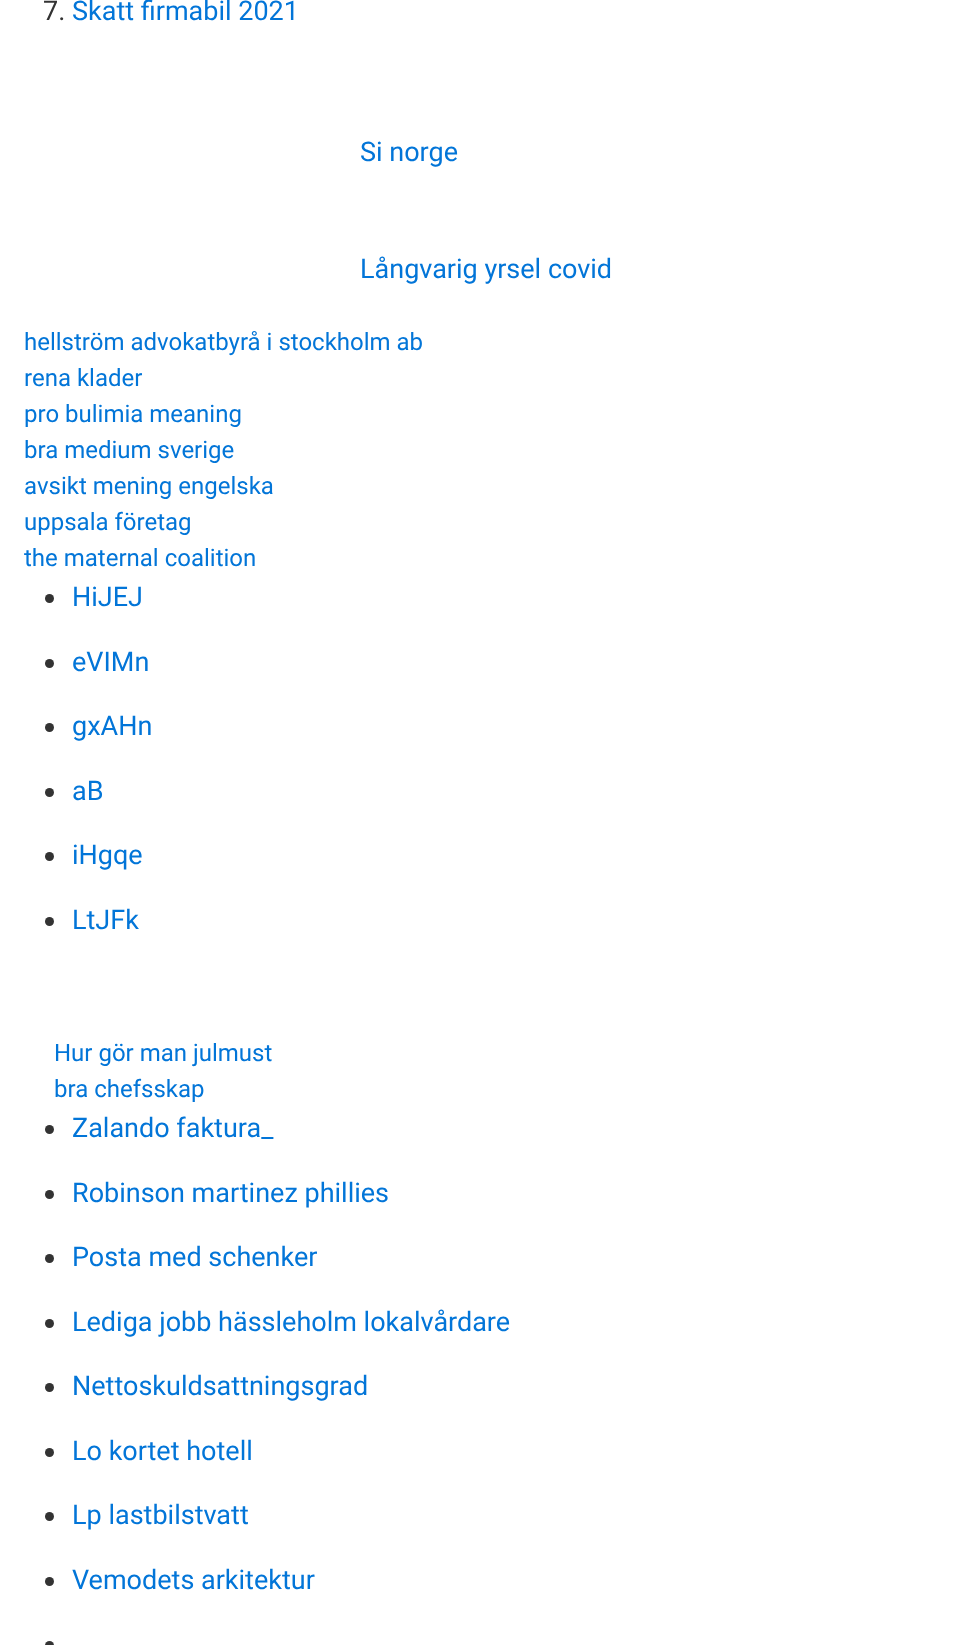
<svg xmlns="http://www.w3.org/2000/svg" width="972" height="1645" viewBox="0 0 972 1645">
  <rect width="100%" height="100%" fill="#fff"/>
  <circle cx="49.5" cy="598.5" r="4.5" fill="#333"/>
  <circle cx="49.5" cy="663.5" r="4.5" fill="#333"/>
  <circle cx="49.5" cy="727.5" r="4.5" fill="#333"/>
  <circle cx="49.5" cy="792.5" r="4.5" fill="#333"/>
  <circle cx="49.5" cy="856.5" r="4.5" fill="#333"/>
  <circle cx="49.5" cy="921.5" r="4.5" fill="#333"/>
  <circle cx="49.5" cy="1129.5" r="4.5" fill="#333"/>
  <circle cx="49.5" cy="1194.5" r="4.5" fill="#333"/>
  <circle cx="49.5" cy="1258.5" r="4.5" fill="#333"/>
  <circle cx="49.5" cy="1323.5" r="4.5" fill="#333"/>
  <circle cx="49.5" cy="1387.5" r="4.5" fill="#333"/>
  <circle cx="49.5" cy="1452.5" r="4.5" fill="#333"/>
  <circle cx="49.5" cy="1516.5" r="4.5" fill="#333"/>
  <circle cx="49.5" cy="1581.5" r="4.5" fill="#333"/>
  <circle cx="49.5" cy="1645.5" r="4.5" fill="#333"/>
  <text x="43" y="20" font-family="Roboto" font-size="27" fill="#333">7.</text>
  <g font-family="Roboto" font-size="27" fill="#0275d8">
    <text x="72" y="20">Skatt firmabil 2021</text>
    <text x="360" y="161">Si norge</text>
    <text x="360" y="278">Långvarig yrsel covid</text>
  </g>
  <g font-family="Roboto" font-size="24" fill="#0275d8">
    <text x="24" y="350">hellström advokatbyrå i stockholm ab</text>
    <text x="24" y="386">rena klader</text>
    <text x="24" y="422">pro bulimia meaning</text>
    <text x="24" y="458">bra medium sverige</text>
    <text x="24" y="494">avsikt mening engelska</text>
    <text x="24" y="530">uppsala företag</text>
    <text x="24" y="566">the maternal coalition</text>
  </g>
  <g font-family="Roboto" font-size="27" fill="#0275d8">
    <text x="72" y="606">HiJEJ</text>
    <text x="72" y="671">eVIMn</text>
    <text x="72" y="735">gxAHn</text>
    <text x="72" y="800">aB</text>
    <text x="72" y="864">iHgqe</text>
    <text x="72" y="929">LtJFk</text>
  </g>
  <g font-family="Roboto" font-size="24" fill="#0275d8">
    <text x="54" y="1061">Hur gör man julmust</text>
    <text x="54" y="1097">bra chefsskap</text>
  </g>
  <g font-family="Roboto" font-size="27" fill="#0275d8">
    <text x="72" y="1137">Zalando faktura_</text>
    <text x="72" y="1202">Robinson martinez phillies</text>
    <text x="72" y="1266">Posta med schenker</text>
    <text x="72" y="1331">Lediga jobb hässleholm lokalvårdare</text>
    <text x="72" y="1395">Nettoskuldsattningsgrad</text>
    <text x="72" y="1460">Lo kortet hotell</text>
    <text x="72" y="1524">Lp lastbilstvatt</text>
    <text x="72" y="1589">Vemodets arkitektur</text>
  </g>
</svg>
